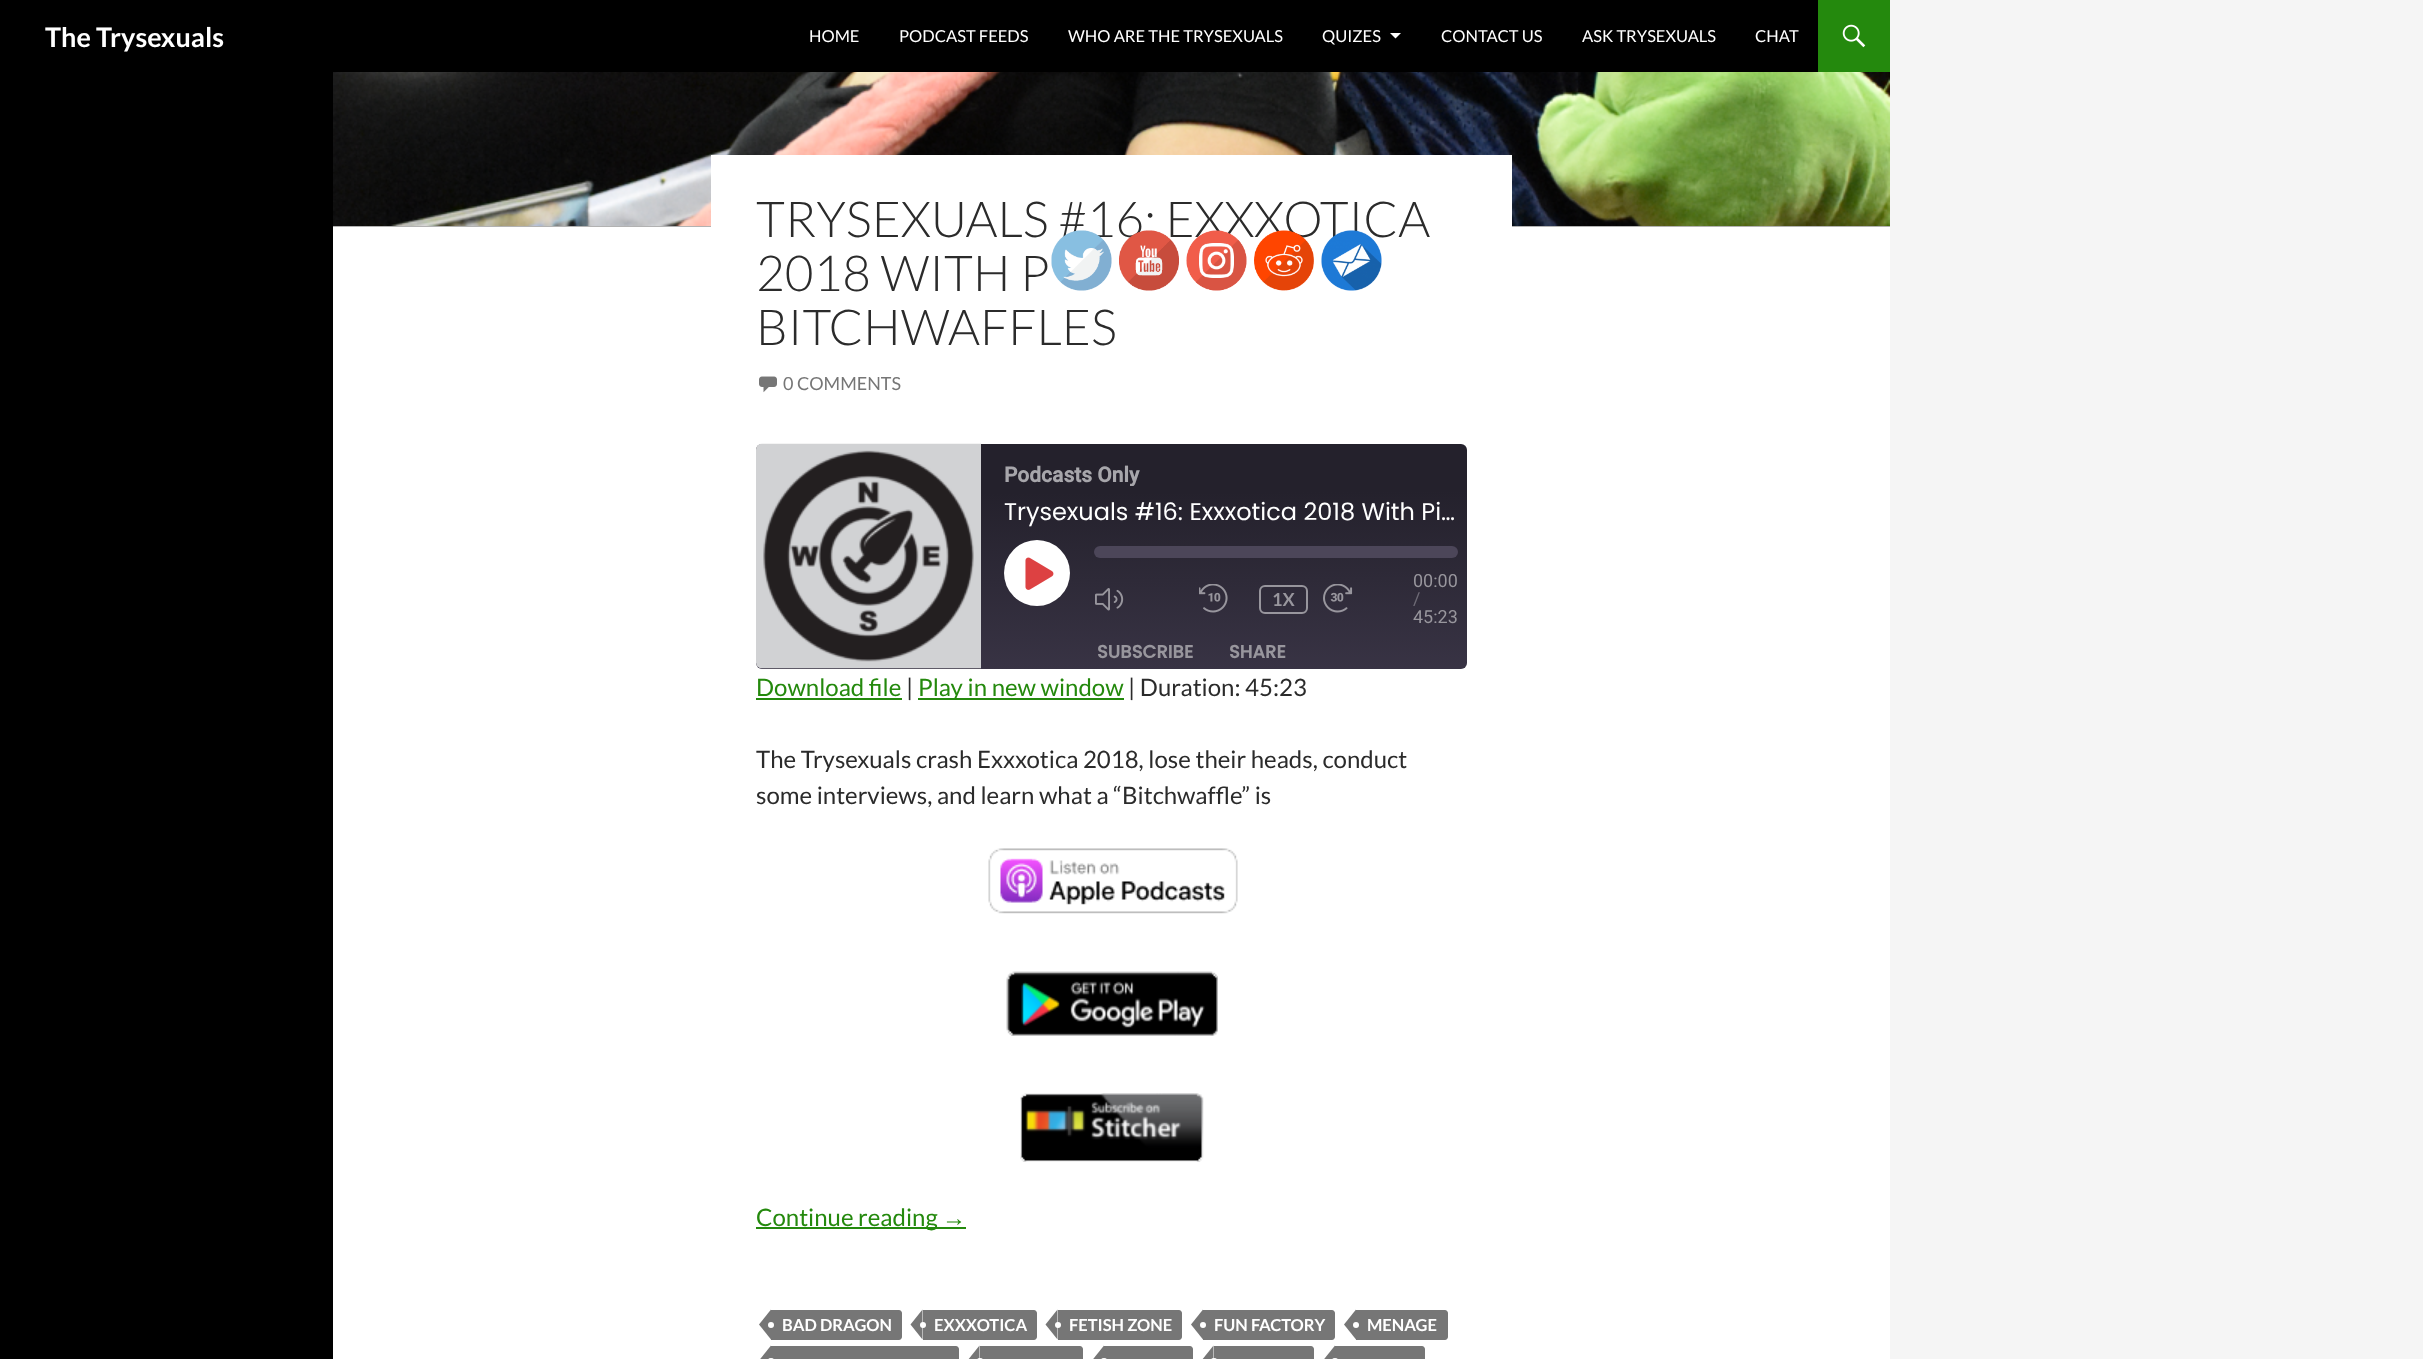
<svg xmlns="http://www.w3.org/2000/svg" width="2423" height="1359" viewBox="0 0 2423 1359">
  <defs>
    <linearGradient id="g1" gradientUnits="userSpaceOnUse" x1="1112" y1="671" x2="1111" y2="442"><stop offset="0.01" stop-color="#383344"/><stop offset="0.78" stop-color="#24212c"/></linearGradient>
    <clipPath id="clip1"><path d="M1004 464h454v22H1004z"/></clipPath>
  </defs>
  <rect width="100%" height="100%" fill="#f5f5f5"/>
  <path d="M333 227h1557v1132H333z" fill="#fff"/>
  <path d="M0 0h1818v72H0z" fill="#000"/>
  <path d="M1390 33L1395.5 38.5L1401 33Z" fill="#fff"/>
  <path d="M1818 0h72v72H1818z" fill="#24890d"/>
  <image x="1842" y="24" width="24" height="24" href="img/1.png"/>
  <path d="M0 72h333v1287H0z" fill="#000"/>
  <path d="M333 226h1557v1H333z" fill="#b2b2b2"/>
  <image x="333" y="72" width="1557" height="154" href="img/2.png"/>
  <path d="M711 155h801v72H711z" fill="#fff"/>
  <image x="759" y="376" width="18" height="17" href="img/3.png"/>
  <rect x="756" y="444" width="711" height="225" rx="6" fill="url(#g1)"/>
  <image x="756" y="443" width="225" height="226" href="img/4.png"/>
  <circle cx="1037" cy="573" r="33" fill="#fff"/>
  <image x="1025" y="557" width="29" height="33" href="img/5.png"/>
  <rect x="1094" y="546" width="364" height="12" rx="6" fill="#4c4659"/>
  <image x="1095" y="588" width="29" height="23" href="img/6.png"/>
  <image x="1199" y="584" width="29" height="29" href="img/7.png"/>
  <rect x="1260" y="586" width="47" height="27" rx="5" fill="none" stroke="#ffffff80" stroke-width="2"/>
  <image x="1323" y="584" width="30" height="29" href="img/8.png"/>
  <path d="M756 698h146v2H756z" fill="#24890d"/>
  <path d="M918 698h206v2H918z" fill="#24890d"/>
  <image x="988" y="848" width="250" height="66" href="img/9.png"/>
  <image x="1006" y="971" width="212" height="65" href="img/10.png"/>
  <image x="1020" y="1093" width="184" height="69" href="img/11.png"/>
  <path d="M756 1227h210v2H756z" fill="#24890d"/>
  <path d="M771 1310H899C900.5 1310 902 1311.5 902 1313V1337C902 1338.5 900.5 1340 899 1340H771Z" fill="#767676"/>
  <path d="M771 1309.5V1339.5L759 1324.5Z" fill="#767676"/>
  <circle cx="771" cy="1325" r="3" fill="#fff"/>
  <path d="M923 1310H1034C1035.5 1310 1037 1311.5 1037 1313V1337C1037 1338.5 1035.5 1340 1034 1340H923Z" fill="#767676"/>
  <path d="M922.5 1309.5V1339.5L910.5 1324.5Z" fill="#767676"/>
  <circle cx="923" cy="1325" r="3" fill="#fff"/>
  <path d="M1058 1310H1179C1180.5 1310 1182 1311.5 1182 1313V1337C1182 1338.5 1180.5 1340 1179 1340H1058Z" fill="#767676"/>
  <path d="M1057.5 1309.5V1339.5L1045.5 1324.5Z" fill="#767676"/>
  <circle cx="1058" cy="1325" r="3" fill="#fff"/>
  <path d="M1203 1310H1332C1333.5 1310 1335 1311.5 1335 1313V1337C1335 1338.5 1333.5 1340 1332 1340H1203Z" fill="#767676"/>
  <path d="M1203 1309.5V1339.5L1191 1324.5Z" fill="#767676"/>
  <circle cx="1203" cy="1325" r="3" fill="#fff"/>
  <path d="M1356 1310H1445C1446.5 1310 1448 1311.5 1448 1313V1337C1448 1338.5 1446.5 1340 1445 1340H1356Z" fill="#767676"/>
  <path d="M1356 1309.5V1339.5L1344 1324.5Z" fill="#767676"/>
  <circle cx="1356" cy="1325" r="3" fill="#fff"/>
  <path d="M771 1346H956C957.5 1346 959 1347.5 959 1349V1359C959 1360.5 957.5 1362 956 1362H771Z" fill="#767676"/>
  <path d="M771 1345.5V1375.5L759 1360.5Z" fill="#767676"/>
  <rect x="768" y="1358" width="6" height="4" rx="3" fill="#fff"/>
  <path d="M980 1346H1080C1081.5 1346 1083 1347.5 1083 1349V1359C1083 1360.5 1081.5 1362 1080 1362H980Z" fill="#767676"/>
  <path d="M979.5 1345.5V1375.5L967.5 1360.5Z" fill="#767676"/>
  <rect x="977" y="1358" width="6" height="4" rx="3" fill="#fff"/>
  <path d="M1104 1346H1190C1191.5 1346 1193 1347.5 1193 1349V1359C1193 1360.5 1191.5 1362 1190 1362H1104Z" fill="#767676"/>
  <path d="M1104 1345.5V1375.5L1092 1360.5Z" fill="#767676"/>
  <rect x="1101" y="1358" width="6" height="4" rx="3" fill="#fff"/>
  <path d="M1214 1346H1311C1312.5 1346 1314 1347.5 1314 1349V1359C1314 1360.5 1312.5 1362 1311 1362H1214Z" fill="#767676"/>
  <path d="M1213.5 1345.5V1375.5L1201.5 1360.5Z" fill="#767676"/>
  <rect x="1211" y="1358" width="6" height="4" rx="3" fill="#fff"/>
  <path d="M1335 1346H1422C1423.5 1346 1425 1347.5 1425 1349V1359C1425 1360.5 1423.5 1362 1422 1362H1335Z" fill="#767676"/>
  <path d="M1335 1345.5V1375.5L1323 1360.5Z" fill="#767676"/>
  <rect x="1332" y="1358" width="6" height="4" rx="3" fill="#fff"/>
  <text x="45" y="47" font-family="Lato" font-size="27" font-weight="bold" fill="#fff">The Trysexuals</text>
  <g font-family="Lato" font-size="16.5" fill="#fff">
    <text x="809" y="42">HOME</text>
    <text x="899" y="42">PODCAST FEEDS</text>
    <text x="1068" y="42">WHO ARE THE TRYSEXUALS</text>
    <text x="1322" y="42">QUIZES</text>
    <text x="1441" y="42">CONTACT US</text>
    <text x="1582" y="42">ASK TRYSEXUALS</text>
    <text x="1755" y="42">CHAT</text>
  </g>
  <g font-family="Lato" font-size="49.5" font-weight="300" fill="#2b2b2b">
    <text x="756" y="237">TRYSEXUALS #16: EXXXOTICA</text>
    <text x="756" y="291">2018 WITH P</text>
    <text x="756" y="345">BITCHWAFFLES</text>
  </g>
  <text x="783" y="390" font-family="Lato" font-size="18" fill="#767676">0 COMMENTS</text>
  <g clip-path="url(#clip1)">
    <text x="1004" y="482" font-family="Roboto" font-size="21" font-weight="bold" fill="#a7a6ab">Podcasts Only</text>
  </g>
  <text x="1004" y="520" font-family="Poppins" font-size="24" fill="#fff">Trysexuals #16: Exxxotica 2018 With Pi…</text>
  <text x="1272" y="606" font-family="Lato" font-size="18" font-weight="bold" fill="#98969d">1X</text>
  <text x="1413" y="587" font-family="Roboto" font-size="18" fill="#98969d">00:00</text>
  <text x="1413" y="605" font-family="Roboto" font-size="18" fill="#6e6b76">/</text>
  <text x="1413" y="623" font-family="Roboto" font-size="18" fill="#98969d">45:23</text>
  <g font-family="Poppins" font-size="18" font-weight="bold" fill="#98969d">
    <text x="1097" y="658">SUBSCRIBE</text>
    <text x="1229" y="658">SHARE</text>
  </g>
  <text x="756" y="696" font-family="Lato" font-size="24" fill="#24890d">Download file</text>
  <text x="906" y="696" font-family="Lato" font-size="24" fill="#2b2b2b">|</text>
  <text x="918" y="696" font-family="Lato" font-size="24" fill="#24890d">Play in new window</text>
  <g font-family="Lato" font-size="24" fill="#2b2b2b">
    <text x="1128" y="696">| Duration: 45:23</text>
    <text x="756" y="768">The Trysexuals crash Exxxotica 2018, lose their heads, conduct</text>
    <text x="756" y="804">some interviews, and learn what a “Bitchwaffle” is</text>
  </g>
  <text x="756" y="1226" font-family="Lato" font-size="24" fill="#24890d">Continue reading</text>
  <text x="942" y="1226" font-family="Liberation Sans" font-size="24" fill="#24890d">→</text>
  <g font-family="Lato" font-size="16.5" font-weight="bold" fill="#fff">
    <text x="782" y="1331">BAD DRAGON</text>
    <text x="934" y="1331">EXXXOTICA</text>
    <text x="1069" y="1331">FETISH ZONE</text>
    <text x="1214" y="1331">FUN FACTORY</text>
    <text x="1367" y="1331">MENAGE</text>
  </g>
  <image x="1051" y="230" width="61" height="61" href="img/12.png"/>
  <image x="1119" y="230" width="60" height="61" href="img/13.png"/>
  <image x="1186" y="230" width="61" height="61" href="img/14.png"/>
  <image x="1254" y="230" width="60" height="61" href="img/15.png"/>
  <image x="1321" y="230" width="61" height="61" href="img/16.png"/>
</svg>
